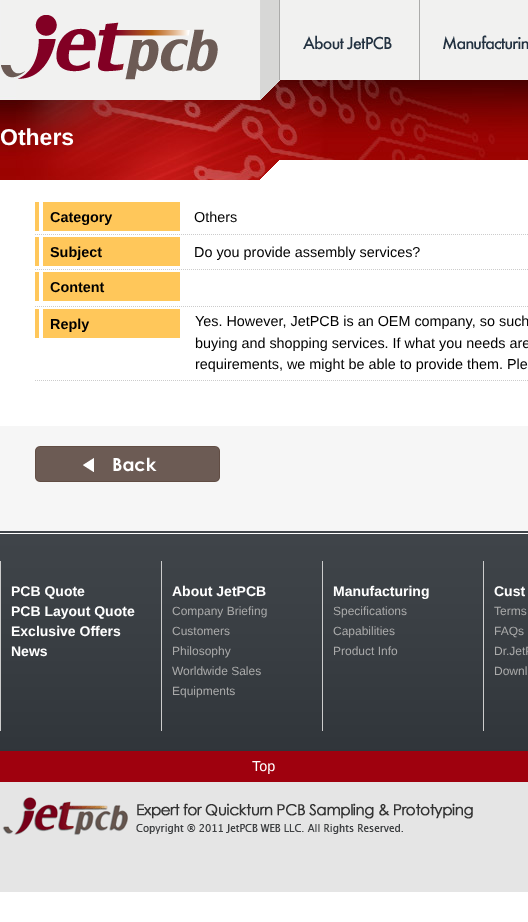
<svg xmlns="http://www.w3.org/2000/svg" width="528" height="922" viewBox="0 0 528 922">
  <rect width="100%" height="100%" fill="#fff"/>
  <image x="0" y="0" width="16" height="180" href="img/1.png"/>
  <image x="1" y="0" width="278" height="80" href="img/2.png"/>
  <image x="279" y="0" width="249" height="80" href="img/3.png"/>
  <image x="16" y="80" width="512" height="100" href="img/5.png"/>
  <image x="16" y="80" width="264" height="20" href="img/4.png"/>
  <image x="260" y="160" width="268" height="20" href="img/6.png"/>
  <path d="M35 234.5H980" fill="none" stroke="#ccc" stroke-dasharray="1 1"/>
  <image x="35" y="202" width="145" height="29" href="img/7.png"/>
  <path d="M35 269.5H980" fill="none" stroke="#ccc" stroke-dasharray="1 1"/>
  <image x="35" y="237" width="145" height="29" href="img/7.png"/>
  <image x="35" y="272" width="145" height="29" href="img/7.png"/>
  <path d="M35 306.5H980" fill="none" stroke="#ccc" stroke-dasharray="1 1"/>
  <image x="35" y="309" width="145" height="29" href="img/7.png"/>
  <path d="M35 380.5H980" fill="none" stroke="#ccc" stroke-dasharray="1 1"/>
  <path d="M0 426h528v105H0z" fill="#f6f6f6"/>
  <image x="35" y="446" width="185" height="36" href="img/8.png"/>
  <image x="0" y="531" width="528" height="220" href="img/9.png"/>
  <path d="M0 561h1v170H0z" fill="#ccc"/>
  <path d="M161 561h1v170H161z" fill="#ccc"/>
  <path d="M322 561h1v170H322z" fill="#ccc"/>
  <path d="M483 561h1v170H483z" fill="#ccc"/>
  <path d="M0 751h528v31H0z" fill="#9f010e"/>
  <path d="M0 782h528v110H0z" fill="#e5e5e5"/>
  <image x="2" y="797" width="471" height="38" href="img/10.png"/>
  <text x="0" y="145" font-family="Liberation Sans" font-size="23" font-weight="bold" fill="#fff">Others</text>
  <text x="50" y="222" font-family="Liberation Sans" font-size="14.4" font-weight="bold" fill="#000">Category</text>
  <text x="194" y="222" font-family="Liberation Sans" font-size="14.4" fill="#000">Others</text>
  <text x="50" y="257" font-family="Liberation Sans" font-size="14.4" font-weight="bold" fill="#000">Subject</text>
  <text x="194" y="257" font-family="Liberation Sans" font-size="14.4" fill="#000">Do you provide assembly services?</text>
  <g font-family="Liberation Sans" font-size="14.4" font-weight="bold" fill="#000">
    <text x="50" y="292">Content</text>
    <text x="50" y="329">Reply</text>
  </g>
  <g font-family="Liberation Sans" font-size="14.4" fill="#000">
    <text x="195" y="326">Yes. However, JetPCB is an OEM company, so such</text>
    <text x="195" y="348">buying and shopping services. If what you needs are</text>
    <text x="195" y="369">requirements, we might be able to provide them. Ple</text>
  </g>
  <g font-family="Liberation Sans" font-size="14" font-weight="bold" fill="#fff">
    <text x="11" y="596">PCB Quote</text>
    <text x="11" y="616">PCB Layout Quote</text>
    <text x="11" y="636">Exclusive Offers</text>
    <text x="11" y="656">News</text>
    <text x="172" y="596">About JetPCB</text>
  </g>
  <g font-family="Liberation Sans" font-size="12" fill="#aaa">
    <text x="172" y="615">Company Briefing</text>
    <text x="172" y="635">Customers</text>
    <text x="172" y="655">Philosophy</text>
    <text x="172" y="675">Worldwide Sales</text>
    <text x="172" y="695">Equipments</text>
  </g>
  <text x="333" y="596" font-family="Liberation Sans" font-size="14" font-weight="bold" fill="#fff">Manufacturing</text>
  <g font-family="Liberation Sans" font-size="12" fill="#aaa">
    <text x="333" y="615">Specifications</text>
    <text x="333" y="635">Capabilities</text>
    <text x="333" y="655">Product Info</text>
  </g>
  <text x="494" y="596" font-family="Liberation Sans" font-size="14" font-weight="bold" fill="#fff">Cust</text>
  <g font-family="Liberation Sans" font-size="12" fill="#aaa">
    <text x="494" y="615">Terms</text>
    <text x="494" y="635">FAQs</text>
    <text x="494" y="655">Dr.JetP</text>
    <text x="494" y="675">Downl</text>
  </g>
  <text x="252" y="771" font-family="Liberation Sans" font-size="14.4" fill="#fff">Top</text>
</svg>
